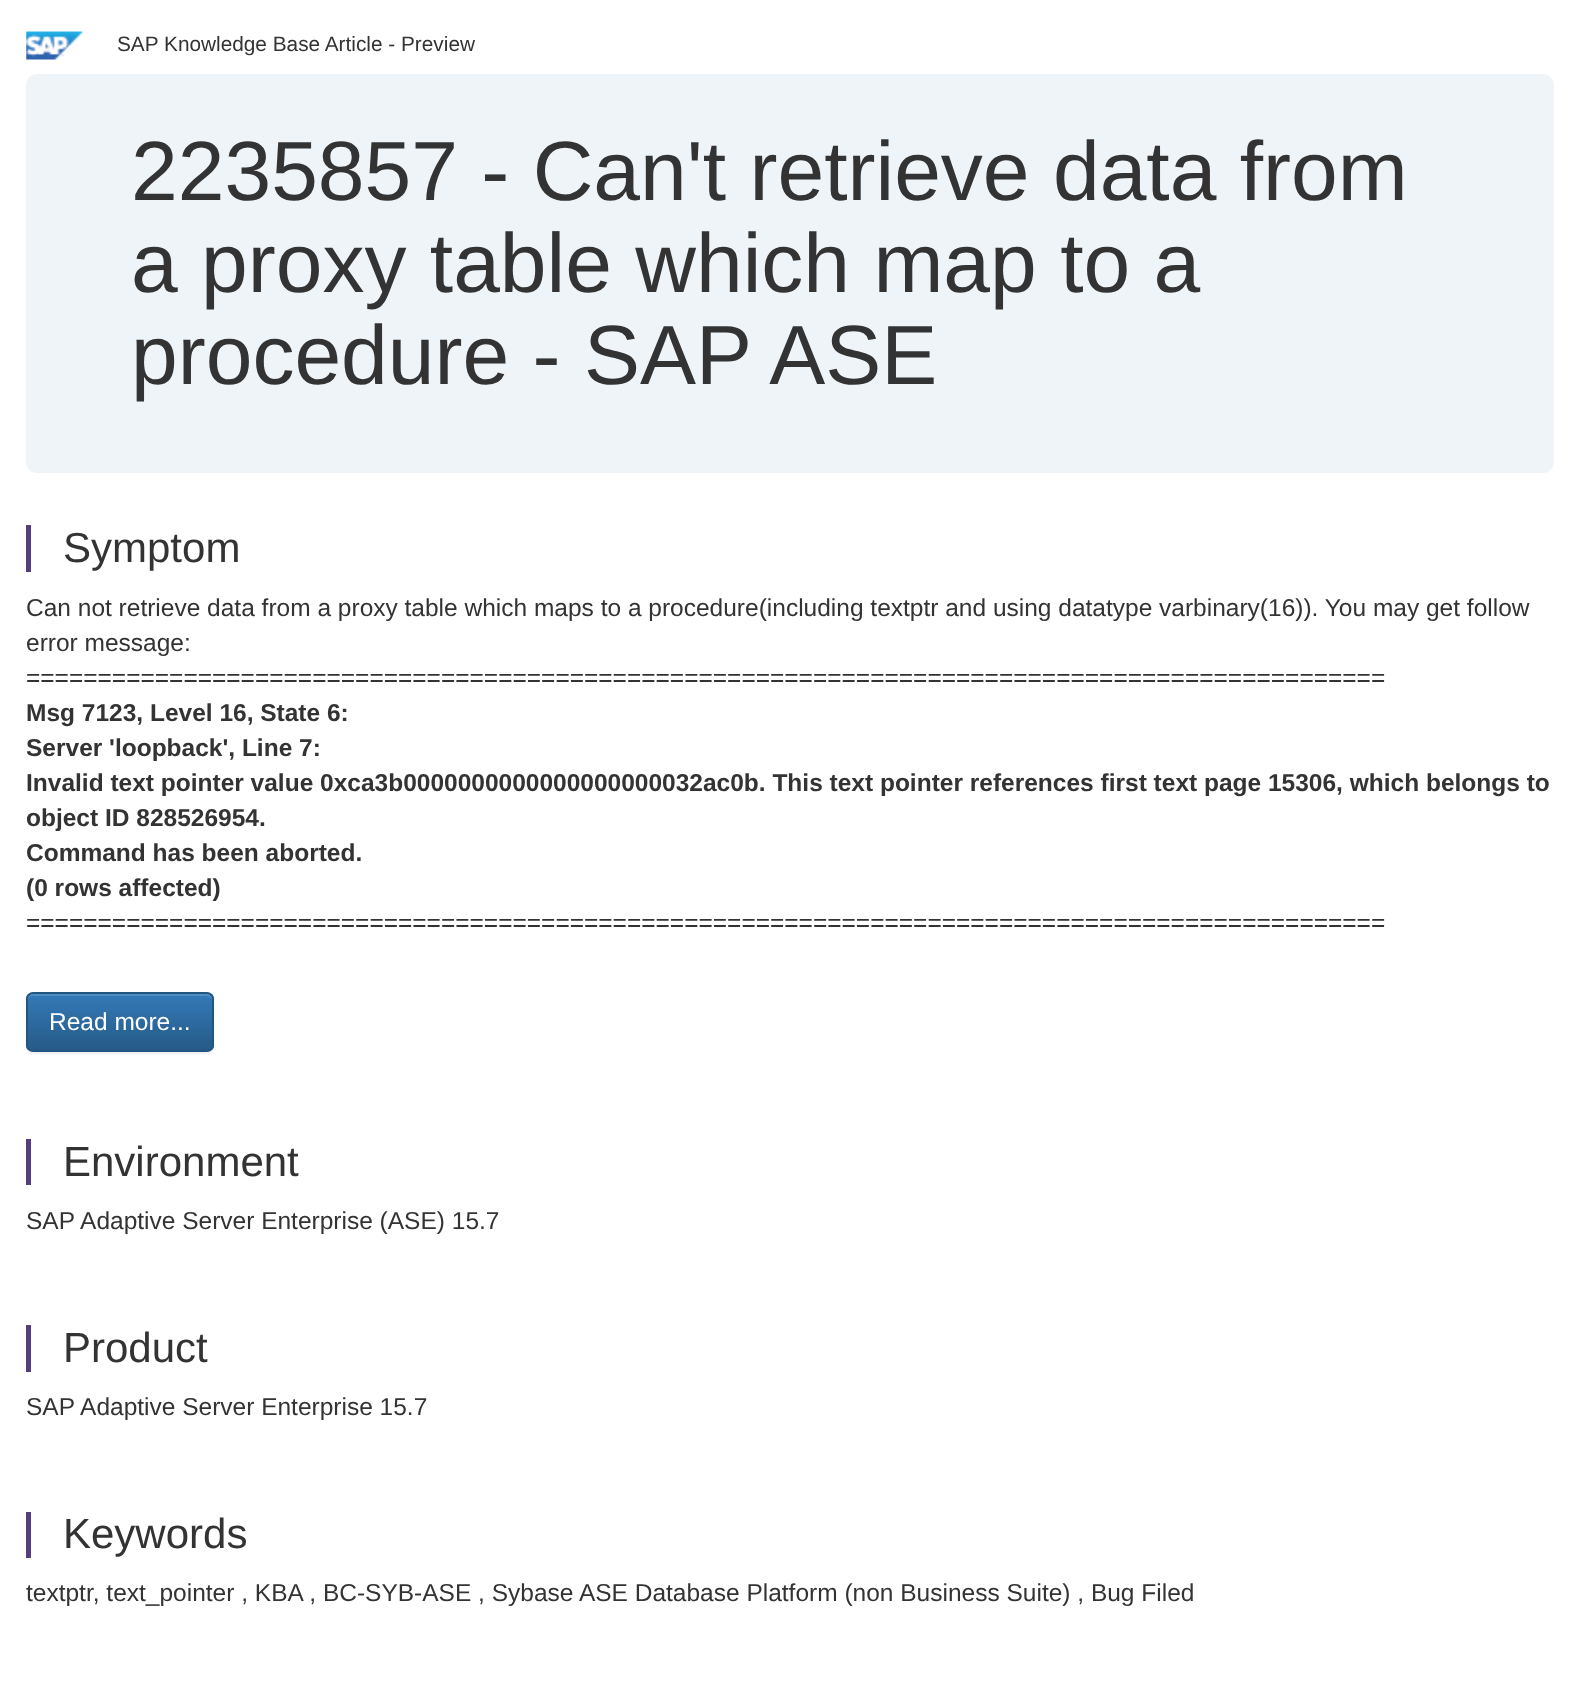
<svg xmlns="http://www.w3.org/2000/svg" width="1579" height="1698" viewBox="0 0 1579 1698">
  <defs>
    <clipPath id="clip1"><rect x="26" y="992" width="188" height="60" rx="7"/></clipPath>
    <linearGradient id="g1" gradientUnits="userSpaceOnUse" x1="120" y1="994" x2="120" y2="1050"><stop offset="0" stop-color="#337ab7"/><stop offset="1" stop-color="#265a88"/></linearGradient>
  </defs>
  <rect width="100%" height="100%" fill="#fff"/>
  <image x="26" y="31" width="57" height="29" href="img/1.png"/>
  <rect x="26" y="74" width="1528" height="399" rx="11" fill="#eff4f9"/>
  <path d="M26 525h5v47H26z" fill="#563d7c"/>
  <rect x="26" y="994" width="188" height="60" rx="7" fill="#00000012" filter="blur(1px)"/>
  <g clip-path="url(#clip1)">
    <path d="M26 994h188v56H26z" fill="url(#g1)"/>
  </g>
  <path d="M33 996H206C209 996 212 998 212 1001V999C212 996 210 994 207 994H33C30 994 28 996 28 999V1001C28 998 30 996 33 996Z" fill="#ffffff26"/>
  <rect x="27" y="993" width="186" height="58" rx="6" fill="none" stroke="#245580" stroke-width="2"/>
  <path d="M26 1139h5v46H26z" fill="#563d7c"/>
  <path d="M26 1325h5v47H26z" fill="#563d7c"/>
  <path d="M26 1512h5v46H26z" fill="#563d7c"/>
  <text x="117" y="51" font-family="Liberation Sans" font-size="20.8" fill="#333">SAP Knowledge Base Article - Preview</text>
  <g font-family="Liberation Sans" font-size="84" fill="#333">
    <text x="131" y="200">2235857 - Can't retrieve data from</text>
    <text x="131" y="292">a proxy table which map to a</text>
    <text x="131" y="384">procedure - SAP ASE</text>
  </g>
  <text x="63" y="562" font-family="Liberation Sans" font-size="42" fill="#333">Symptom</text>
  <g font-family="Liberation Sans" font-size="24.5" fill="#333">
    <text x="26" y="616">Can not retrieve data from a proxy table which maps to a procedure(including textptr and using datatype varbinary(16)). You may get follow</text>
    <text x="26" y="651">error message:</text>
    <text x="26" y="686">===============================================================================================</text>
  </g>
  <g font-family="Liberation Sans" font-size="24.5" font-weight="bold" fill="#333">
    <text x="26" y="721">Msg 7123, Level 16, State 6:</text>
    <text x="26" y="756">Server 'loopback', Line 7:</text>
    <text x="26" y="791">Invalid text pointer value 0xca3b0000000000000000000032ac0b. This text pointer references first text page 15306, which belongs to</text>
    <text x="26" y="826">object ID 828526954.</text>
    <text x="26" y="861">Command has been aborted.</text>
    <text x="26" y="896">(0 rows affected)</text>
  </g>
  <text x="26" y="931" font-family="Liberation Sans" font-size="24.5" fill="#333">===============================================================================================</text>
  <text x="49" y="1030" font-family="Liberation Sans" font-size="24.5" fill="#fff">Read more...</text>
  <text x="63" y="1176" font-family="Liberation Sans" font-size="42" fill="#333">Environment</text>
  <text x="26" y="1229" font-family="Liberation Sans" font-size="24.5" fill="#333">SAP Adaptive Server Enterprise (ASE) 15.7</text>
  <text x="63" y="1362" font-family="Liberation Sans" font-size="42" fill="#333">Product</text>
  <text x="26" y="1415" font-family="Liberation Sans" font-size="24.5" fill="#333">SAP Adaptive Server Enterprise 15.7</text>
  <text x="63" y="1548" font-family="Liberation Sans" font-size="42" fill="#333">Keywords</text>
  <text x="26" y="1601" font-family="Liberation Sans" font-size="24.5" fill="#333">textptr, text_pointer , KBA , BC-SYB-ASE , Sybase ASE Database Platform (non Business Suite) , Bug Filed</text>
</svg>
